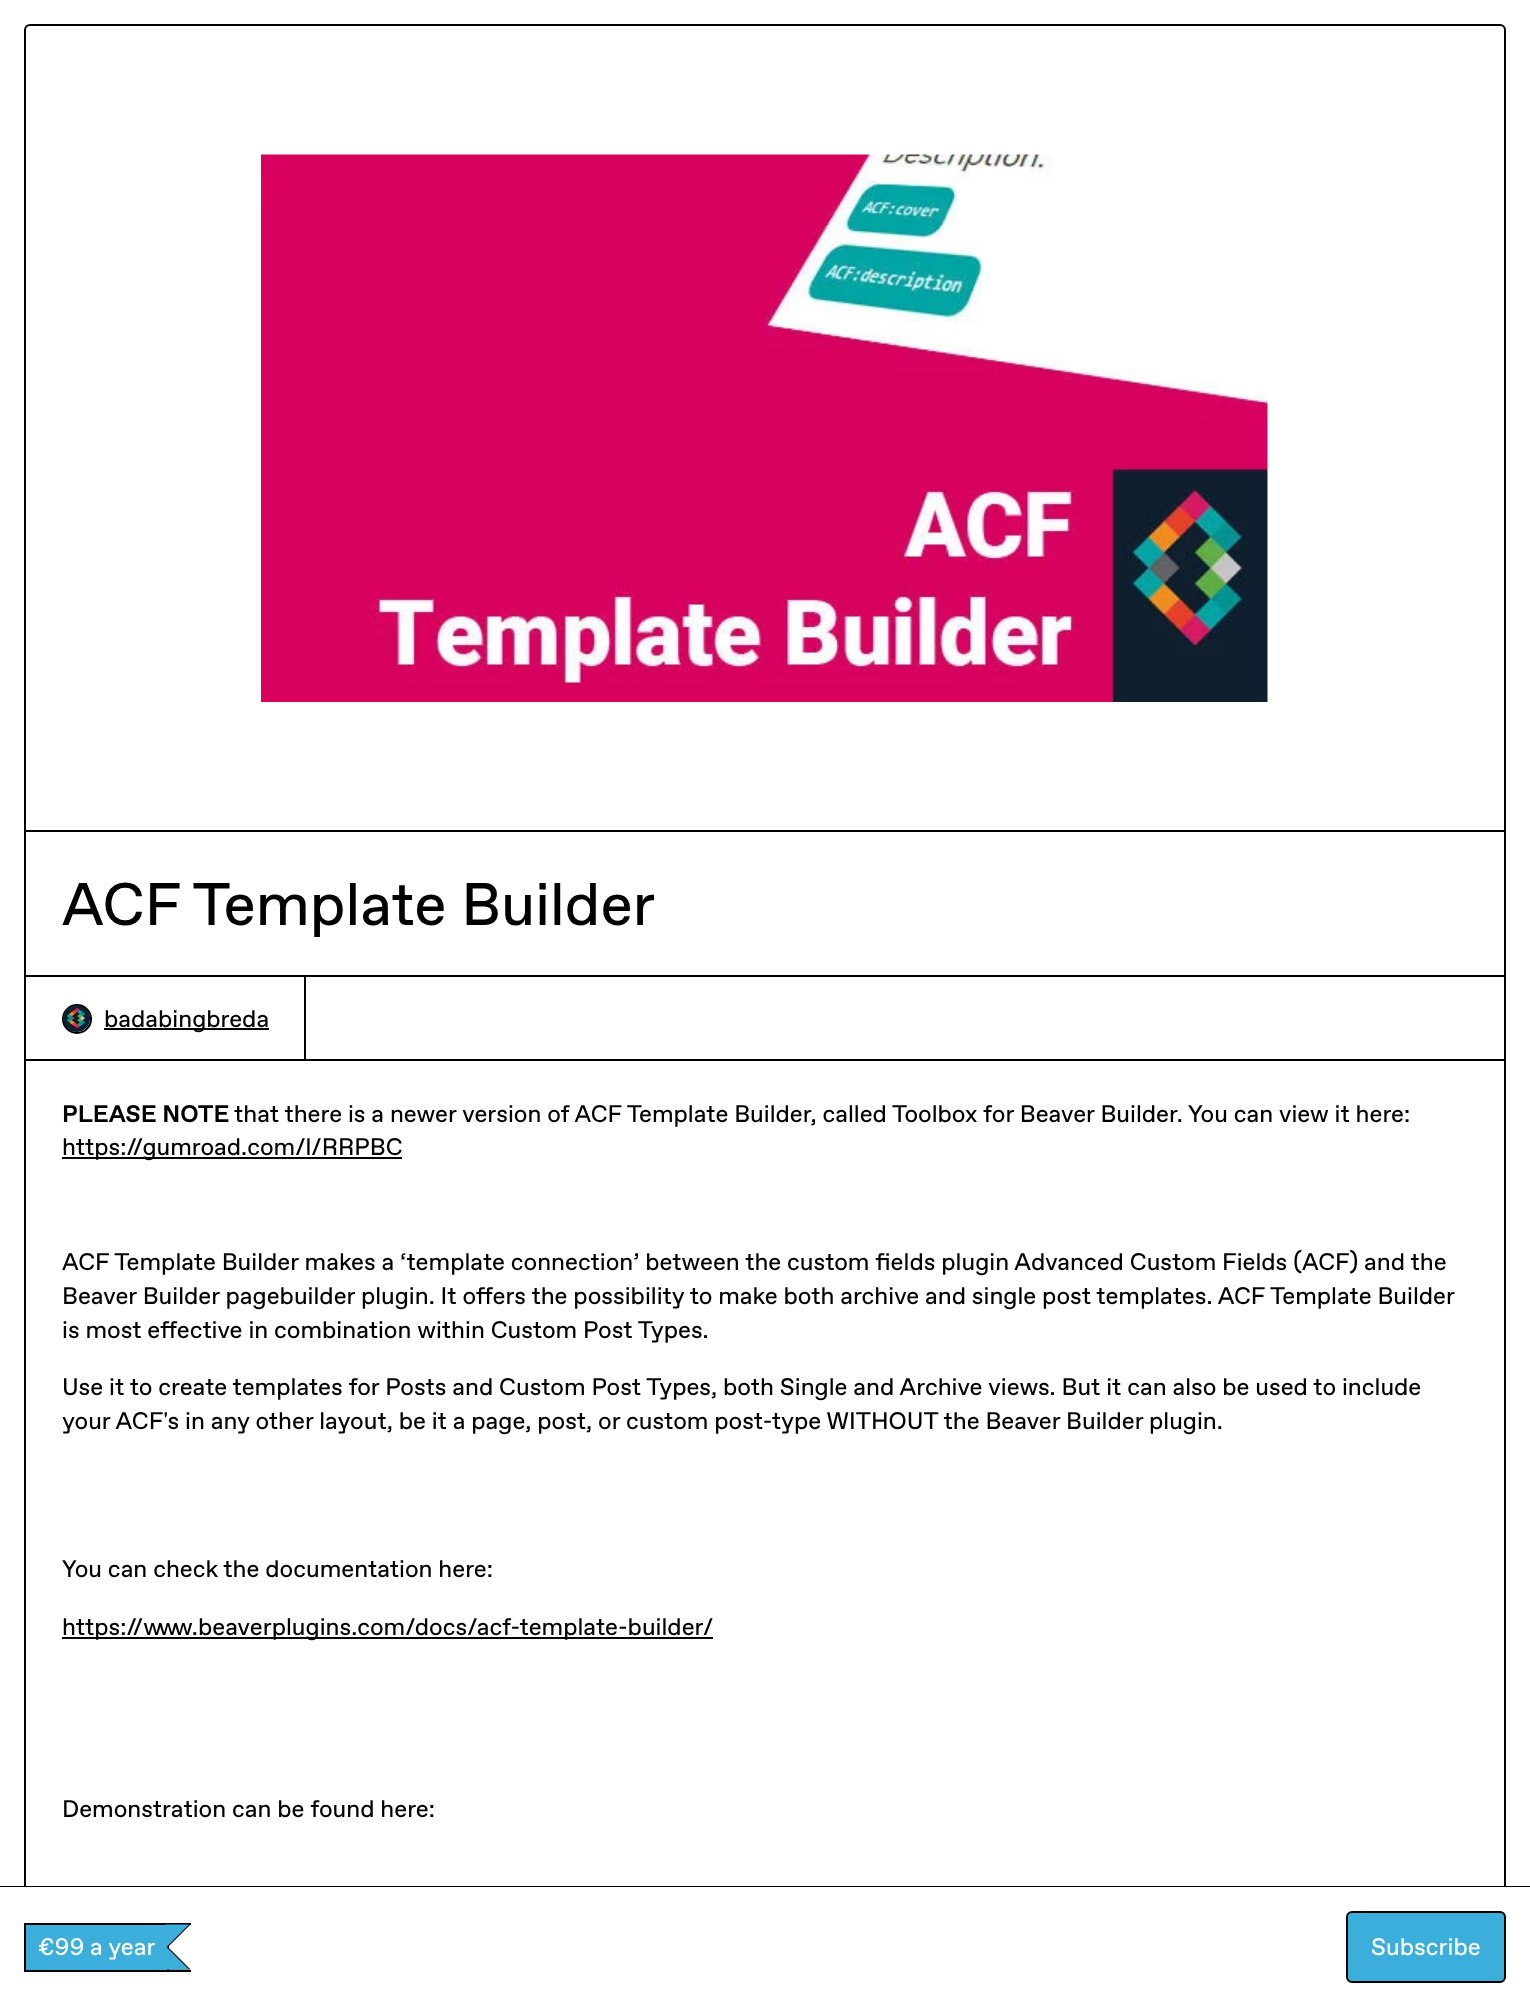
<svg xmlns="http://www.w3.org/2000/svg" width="1530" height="2006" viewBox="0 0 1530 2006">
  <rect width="100%" height="100%" fill="#fff"/>
  <rect x="25" y="25" width="1480" height="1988" rx="5" fill="none" stroke="#000" stroke-width="2"/>
  <path d="M26 830h1479v2H26z" fill="#000"/>
  <image x="261" y="154" width="1007" height="548" href="img/1.png"/>
  <path d="M306 975h1199v2H306z" fill="#000"/>
  <path d="M25 976h280v84H25z" fill="none" stroke="#000" stroke-width="2"/>
  <circle cx="77" cy="1019" r="14" fill="none" stroke="#000" stroke-width="2"/>
  <image x="63" y="1005" width="27" height="27" href="img/2.png"/>
  <path d="M104 1028h165v2H104z" fill="#000"/>
  <path d="M306 1059h1199v2H306z" fill="#000"/>
  <path d="M62 1157h340v2H62z" fill="#000"/>
  <path d="M62 1637h651v2H62z" fill="#000"/>
  <path d="M0 1886h1530v1H0z" fill="#000"/>
  <path d="M24 1887h1482v119H24z" fill="#fff"/>
  <path d="M24 1923h167v2H24z" fill="#000"/>
  <path d="M24 1970h167v2H24z" fill="#000"/>
  <path d="M24 1923h2v48H24z" fill="#000"/>
  <path d="M166.5 1924.5H190.5L168 1947ZM190.5 1969.5H166.5L168 1947Z" fill="#000"/>
  <path d="M167 1944h2v26H167z" fill="#000"/>
  <path d="M165 1924.5H189L166.5 1947ZM189 1969.5H165L166.5 1947Z" fill="#3baedb"/>
  <path d="M165 1925h2v45H165z" fill="#3baedb"/>
  <path d="M26 1925h139v45H26z" fill="#3baedb"/>
  <rect x="1347" y="1912" width="158" height="70" rx="5" fill="#3baedb" stroke="#000" stroke-width="2"/>
  <text x="62" y="925" font-family="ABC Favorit" font-size="60" fill="#000">ACF Template Builder</text>
  <text x="104" y="1027" font-family="ABC Favorit" font-size="24" fill="#000">badabingbreda</text>
  <text x="62" y="1122" font-family="ABC Favorit" font-size="24" font-weight="bold" fill="#000">PLEASE NOTE</text>
  <g font-family="ABC Favorit" font-size="24" fill="#000">
    <text x="234" y="1122">that there is a newer version of ACF Template Builder, called Toolbox for Beaver Builder. You can view it here:</text>
    <text x="62" y="1155">https://gumroad.com/l/RRPBC</text>
    <text x="62" y="1270">ACF Template Builder makes a ‘template connection’ between the custom fields plugin Advanced Custom Fields (ACF) and the</text>
    <text x="62" y="1304">Beaver Builder pagebuilder plugin. It offers the possibility to make both archive and single post templates. ACF Template Builder</text>
    <text x="62" y="1338">is most effective in combination within Custom Post Types.</text>
    <text x="62" y="1395">Use it to create templates for Posts and Custom Post Types, both Single and Archive views. But it can also be used to include</text>
    <text x="62" y="1429">your ACF's in any other layout, be it a page, post, or custom post-type WITHOUT the Beaver Builder plugin.</text>
    <text x="62" y="1577">You can check the documentation here:</text>
    <text x="62" y="1635">https://www.beaverplugins.com/docs/acf-template-builder/</text>
    <text x="62" y="1817">Demonstration can be found here:</text>
  </g>
  <g font-family="ABC Favorit" font-size="24" fill="#fff">
    <text x="38" y="1955">€99 a year</text>
    <text x="1371" y="1955">Subscribe</text>
  </g>
</svg>
